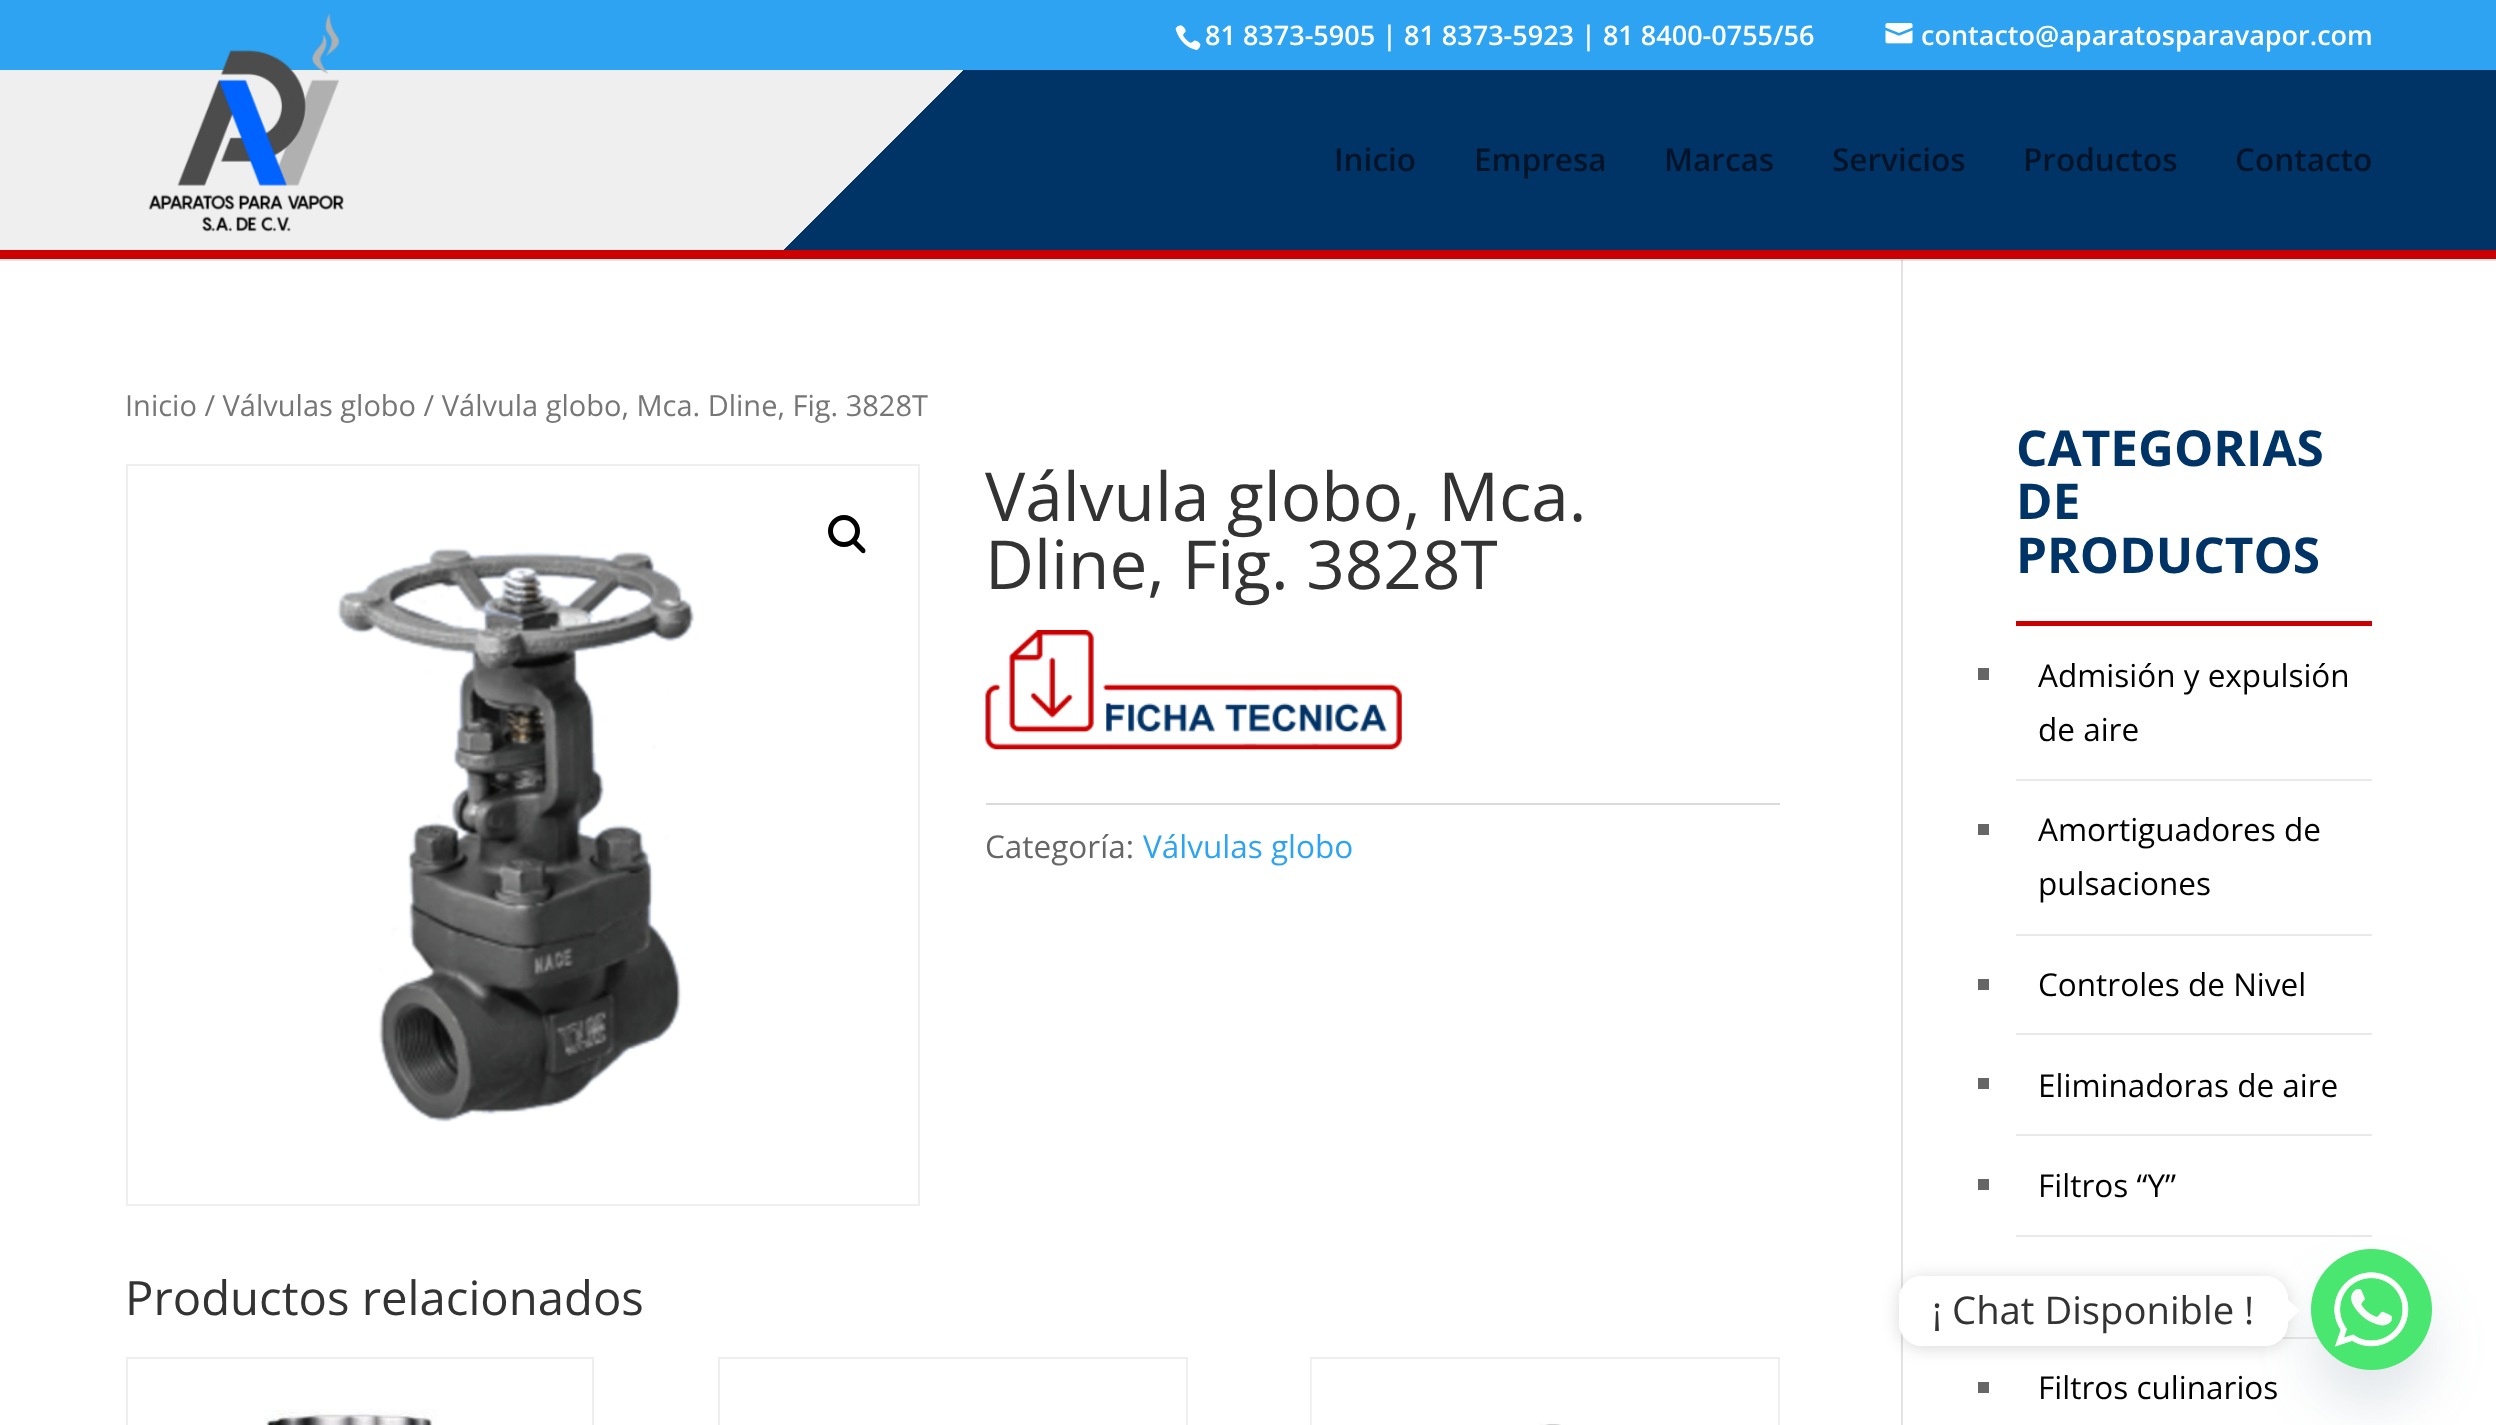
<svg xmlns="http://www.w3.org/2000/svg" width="2496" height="1425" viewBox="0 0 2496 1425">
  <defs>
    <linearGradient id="g1" gradientUnits="userSpaceOnUse" x1="1918" y1="829" x2="579" y2="-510"><stop offset="0.64" stop-color="#036"/><stop offset="0.64" stop-color="#efefef"/></linearGradient>
    <clipPath id="clip1"><path d="M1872 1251H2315V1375H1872ZM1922 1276H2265C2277.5 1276 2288 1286.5 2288 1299V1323C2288 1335.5 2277.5 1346 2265 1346H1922C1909.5 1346 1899 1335.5 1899 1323V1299C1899 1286.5 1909.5 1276 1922 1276Z" clip-rule="evenodd"/></clipPath>
  </defs>
  <rect width="100%" height="100%" fill="#fff"/>
  <path d="M0 0h2496v70H0z" fill="#2ea3f2"/>
  <image x="1175" y="25" width="26" height="26" href="img/1.png"/>
  <image x="1885" y="23" width="28" height="21" href="img/2.png"/>
  <path d="M1901 259h2v1166H1901z" fill="#e2e2e2"/>
  <path d="M0 259V261H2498V72V259Z" fill="#0000001a"/>
  <path d="M0 70h2496v180H0z" fill="url(#g1)"/>
  <path d="M0 250h2496v9H0z" fill="#c00"/>
  <image x="148" y="13" width="196" height="219" href="img/3.png"/>
  <path d="M127 465h792v740H127z" fill="none" stroke="#efefef" stroke-width="2"/>
  <image x="337" y="548" width="358" height="574" href="img/4.png"/>
  <circle cx="844" cy="531" r="13.5" fill="none" stroke="#000" stroke-width="5"/>
  <path d="M852 539.5C853 539 854.5 539 855.5 539.5L865 549C865.5 550 865.5 551.5 865 552.5C864 553.5 862.5 553.5 861.5 552.5L852 543C851 542 851 540.5 852 539.5Z" fill="#000"/>
  <image x="985" y="630" width="417" height="120" href="img/5.png"/>
  <path d="M986 803h794v2H986z" fill="#dadada"/>
  <path d="M127 1358h466v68H127z" fill="none" stroke="#efefef" stroke-width="2"/>
  <image x="264" y="1409" width="173" height="16" href="img/6.png"/>
  <path d="M719 1358h468v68H719z" fill="none" stroke="#efefef" stroke-width="2"/>
  <path d="M1311 1358h468v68H1311z" fill="none" stroke="#efefef" stroke-width="2"/>
  <image x="1311" y="1359" width="250" height="66" href="img/7.png"/>
  <path d="M2016 621h356v5H2016z" fill="#c00"/>
  <path d="M2016 779h356v2H2016z" fill="#e9e9e9"/>
  <path d="M1978 668h11v12H1978z" fill="#666"/>
  <path d="M2016 934h356v2H2016z" fill="#e9e9e9"/>
  <path d="M1978 824h11v11H1978z" fill="#666"/>
  <path d="M2016 1033h356v2H2016z" fill="#e9e9e9"/>
  <path d="M1978 979h11v11H1978z" fill="#666"/>
  <path d="M2016 1134h356v2H2016z" fill="#e9e9e9"/>
  <path d="M1978 1078h11v11H1978z" fill="#666"/>
  <path d="M2016 1235h356v2H2016z" fill="#e9e9e9"/>
  <path d="M1978 1179h11v11H1978z" fill="#666"/>
  <path d="M2281 1337h38v2H2281z" fill="#e9e9e9"/>
  <path d="M1978 1382h11v11H1978z" fill="#666"/>
  <rect x="2311" y="1285" width="121" height="121" rx="60.5" fill="#49687e29" filter="blur(27px)"/>
  <image x="2311" y="1249" width="121" height="121" href="img/8.png"/>
  <g clip-path="url(#clip1)">
    <rect x="1899" y="1278" width="389" height="70" rx="23" fill="#00000026" filter="blur(8.5px)"/>
  </g>
  <rect x="1899" y="1276" width="389" height="70" rx="23" fill="#fff"/>
  <path d="M2288 1322V1299.5L2299.5 1310.5Z" fill="#fff"/>
  <g font-family="Open Sans" font-size="27" font-weight="600" fill="#fff">
    <text x="1205" y="45">81 8373-5905 | 81 8373-5923 | 81 8400-0755/56</text>
    <text x="1921" y="45">contacto@aparatosparavapor.com</text>
  </g>
  <g font-family="Open Sans" font-size="31.5" font-weight="600" fill="#001429">
    <text x="1334" y="171">Inicio</text>
    <text x="1474" y="171">Empresa</text>
    <text x="1664" y="171">Marcas</text>
    <text x="1832" y="171">Servicios</text>
    <text x="2023" y="171">Productos</text>
    <text x="2235" y="171">Contacto</text>
  </g>
  <text x="125" y="416" font-family="Open Sans" font-size="29" fill="#767676">Inicio / Válvulas globo / Válvula globo, Mca. Dline, Fig. 3828T</text>
  <g font-family="Open Sans" font-size="67.5" fill="#333">
    <text x="985" y="521">Válvula globo, Mca.</text>
    <text x="985" y="589">Dline, Fig. 3828T</text>
  </g>
  <text x="985" y="858" font-family="Open Sans" font-size="31.5" fill="#666">Categoría:</text>
  <text x="1143" y="858" font-family="Open Sans" font-size="31.5" fill="#2ea3f2">Válvulas globo</text>
  <text x="125" y="1315" font-family="Open Sans" font-size="47.25" fill="#333">Productos relacionados</text>
  <g font-family="Open Sans" font-size="49.5" font-weight="bold" fill="#036">
    <text x="2016" y="466">CATEGORIAS</text>
    <text x="2016" y="519">DE</text>
    <text x="2016" y="573">PRODUCTOS</text>
  </g>
  <g font-family="Open Sans" font-size="31.5" fill="#000">
    <text x="2038" y="687">Admisión y expulsión</text>
    <text x="2038" y="741">de aire</text>
    <text x="2038" y="841">Amortiguadores de</text>
    <text x="2038" y="895">pulsaciones</text>
    <text x="2038" y="996">Controles de Nivel</text>
    <text x="2038" y="1097">Eliminadoras de aire</text>
    <text x="2038" y="1197">Filtros “Y”</text>
    <text x="2038" y="1399">Filtros culinarios</text>
  </g>
  <text x="1932" y="1324" font-family="Open Sans" font-size="38.25" fill="#333">¡ Chat Disponible !</text>
</svg>
